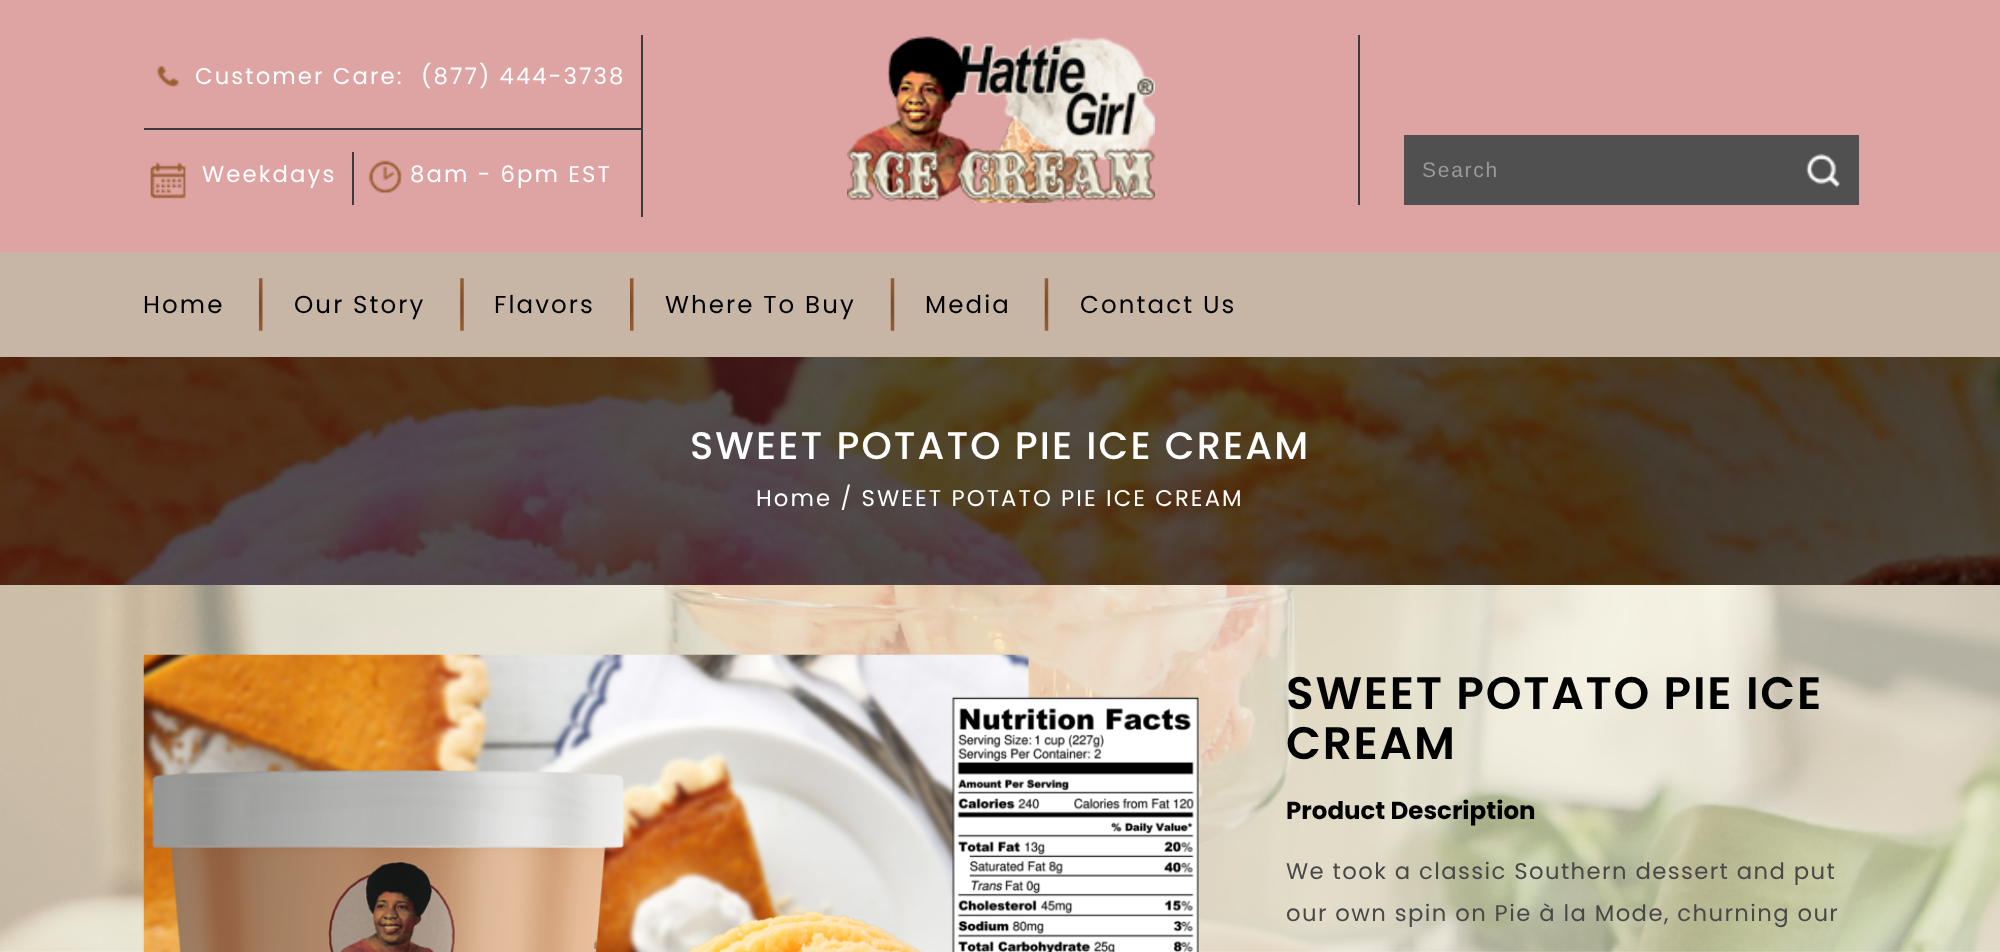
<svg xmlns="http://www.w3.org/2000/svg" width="2000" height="952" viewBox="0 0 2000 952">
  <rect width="100%" height="100%" fill="#fff"/>
  <image x="0" y="585" width="2000" height="367" href="img/1.png"/>
  <path d="M0 0h2000v252H0z" fill="#dea4a3"/>
  <path d="M641 35h2v182H641z" fill="#3c3c3c"/>
  <path d="M144 128h497v2H144z" fill="#3c3c3c"/>
  <image x="156" y="65" width="24" height="23" href="img/2.png"/>
  <image x="150" y="162" width="36" height="37" href="img/3.png"/>
  <path d="M352 152h2v53H352z" fill="#3c3c3c"/>
  <image x="368" y="160" width="34" height="33" href="img/4.png"/>
  <image x="847" y="36" width="308" height="167" href="img/5.png"/>
  <path d="M1358 35h2v170H1358z" fill="#3c3c3c"/>
  <path d="M1404 135h455v70H1404z" fill="#505050"/>
  <image x="1806" y="154" width="34" height="34" href="img/6.png"/>
  <path d="M0 252h2000v105H0z" fill="#c7b6a6"/>
  <image x="259" y="278" width="4" height="53" href="img/7.png"/>
  <image x="460" y="278" width="4" height="53" href="img/8.png"/>
  <image x="630" y="278" width="4" height="53" href="img/7.png"/>
  <image x="890" y="278" width="5" height="53" href="img/9.png"/>
  <image x="1044" y="278" width="5" height="53" href="img/10.png"/>
  <image x="0" y="357" width="2000" height="228" href="img/11.png"/>
  <image x="143" y="654" width="1056" height="298" href="img/12.png"/>
  <g font-family="Poppins" font-size="22.75" letter-spacing="2.1" fill="#fff">
    <text x="195" y="84">Customer Care:</text>
    <text x="421" y="84">(877) 444-3738</text>
    <text x="202" y="182">Weekdays</text>
    <text x="410" y="182">8am - 6pm EST</text>
  </g>
  <text x="1422" y="177" font-family="Liberation Sans" font-size="21" letter-spacing="1.75" fill="#999">Search</text>
  <g font-family="Poppins" font-size="24.5" letter-spacing="2.1" fill="#000">
    <text x="143" y="313">Home</text>
    <text x="294" y="313">Our Story</text>
    <text x="494" y="313">Flavors</text>
    <text x="665" y="313">Where To Buy</text>
    <text x="925" y="313">Media</text>
    <text x="1080" y="313">Contact Us</text>
  </g>
  <text x="690" y="459" font-family="Poppins" font-size="38.5" font-weight="500" letter-spacing="2.1" fill="#fff">SWEET POTATO PIE ICE CREAM</text>
  <text x="756" y="506" font-family="Poppins" font-size="22.75" letter-spacing="2.1" fill="#fff">Home / SWEET POTATO PIE ICE CREAM</text>
  <g font-family="Poppins" font-size="45.5" font-weight="600" letter-spacing="1.75" fill="#000">
    <text x="1286" y="709">SWEET POTATO PIE ICE</text>
    <text x="1286" y="759">CREAM</text>
  </g>
  <text x="1286" y="819" font-family="Poppins" font-size="24.5" font-weight="bold" fill="#000">Product Description</text>
  <g font-family="Poppins" font-size="22.75" letter-spacing="1.4" fill="#484848">
    <text x="1286" y="879">We took a classic Southern dessert and put</text>
    <text x="1286" y="921">our own spin on Pie à la Mode, churning our</text>
  </g>
</svg>
